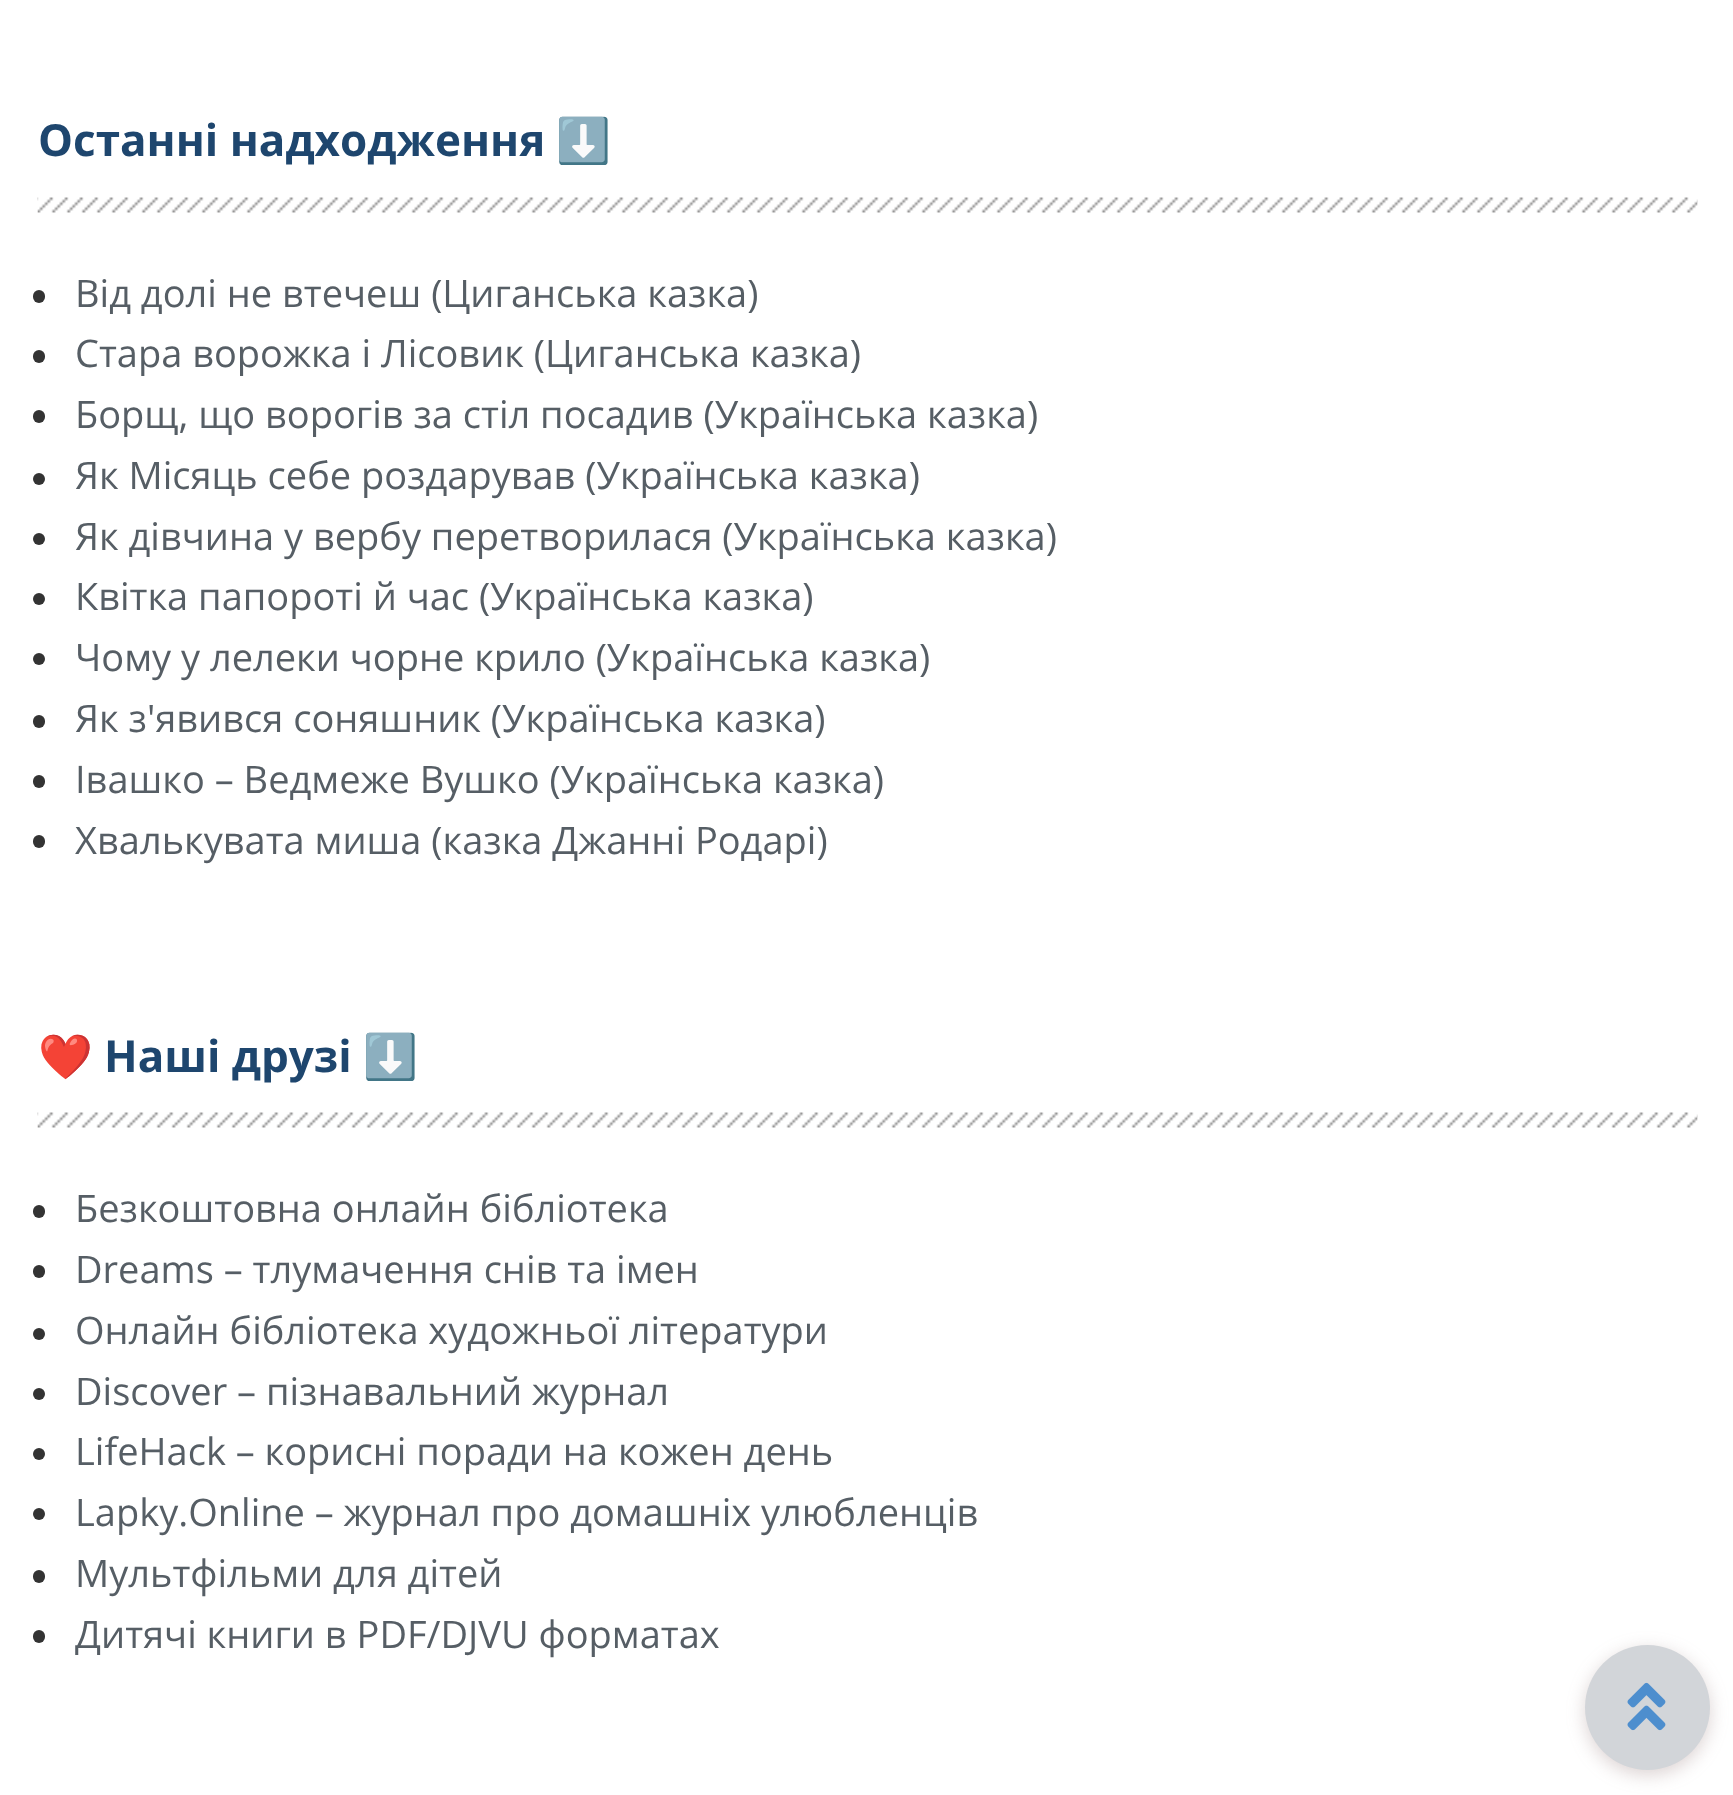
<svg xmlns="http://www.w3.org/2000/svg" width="1733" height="1795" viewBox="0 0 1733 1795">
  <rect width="100%" height="100%" fill="#fff"/>
  <image x="37" y="197" width="1661" height="16" href="img/1.png"/>
  <rect x="33" y="290" width="12" height="13" rx="6" fill="#333"/>
  <rect x="33" y="350" width="12" height="13" rx="6" fill="#333"/>
  <rect x="33" y="410" width="12" height="13" rx="6" fill="#333"/>
  <circle cx="39" cy="479" r="6" fill="#333"/>
  <circle cx="39" cy="539" r="6" fill="#333"/>
  <circle cx="39" cy="599" r="6" fill="#333"/>
  <circle cx="39" cy="659" r="6" fill="#333"/>
  <rect x="33" y="715" width="12" height="13" rx="6" fill="#333"/>
  <rect x="33" y="775" width="12" height="13" rx="6" fill="#333"/>
  <rect x="33" y="835" width="12" height="13" rx="6" fill="#333"/>
  <image x="37" y="1112" width="1661" height="16" href="img/2.png"/>
  <rect x="33" y="1205" width="12" height="13" rx="6" fill="#333"/>
  <rect x="33" y="1265" width="12" height="13" rx="6" fill="#333"/>
  <circle cx="39" cy="1334" r="6" fill="#333"/>
  <circle cx="39" cy="1394" r="6" fill="#333"/>
  <circle cx="39" cy="1454" r="6" fill="#333"/>
  <circle cx="39" cy="1514" r="6" fill="#333"/>
  <rect x="33" y="1570" width="12" height="13" rx="6" fill="#333"/>
  <rect x="33" y="1630" width="12" height="13" rx="6" fill="#333"/>
  <rect x="1585" y="1650" width="125" height="125" rx="62.5" fill="#8a6c6c4d" filter="blur(9px)"/>
  <circle cx="1647.5" cy="1707.5" r="62.5" fill="#d2d5d9"/>
  <image x="1627" y="1682" width="39" height="49" href="img/3.png"/>
  <text x="38" y="156" font-family="Open Sans" font-size="44" font-weight="bold" fill="#1e466e">Останні надходження</text>
  <text x="556" y="156" font-family="Noto Color Emoji" font-size="44" font-weight="bold" fill="#1e466e">⬇️</text>
  <g font-family="Open Sans" font-size="38" fill="#565e65">
    <text x="75" y="307">Від долі не втечеш (Циганська казка)</text>
    <text x="75" y="367">Стара ворожка і Лісовик (Циганська казка)</text>
    <text x="75" y="428">Борщ, що ворогів за стіл посадив (Українська казка)</text>
    <text x="75" y="489">Як Місяць себе роздарував (Українська казка)</text>
    <text x="75" y="550">Як дівчина у вербу перетворилася (Українська казка)</text>
    <text x="75" y="610">Квітка папороті й час (Українська казка)</text>
    <text x="75" y="671">Чому у лелеки чорне крило (Українська казка)</text>
    <text x="75" y="732">Як з'явився соняшник (Українська казка)</text>
    <text x="75" y="793">Івашко – Ведмеже Вушко (Українська казка)</text>
    <text x="75" y="854">Хвалькувата миша (казка Джанні Родарі)</text>
  </g>
  <text x="38" y="1072" font-family="Noto Color Emoji" font-size="44" font-weight="bold" fill="#1e466e">❤️</text>
  <text x="104" y="1072" font-family="Open Sans" font-size="44" font-weight="bold" fill="#1e466e">Наші друзі</text>
  <text x="363" y="1072" font-family="Noto Color Emoji" font-size="44" font-weight="bold" fill="#1e466e">⬇️</text>
  <g font-family="Open Sans" font-size="38" fill="#565e65">
    <text x="75" y="1222">Безкоштовна онлайн бібліотека</text>
    <text x="75" y="1283">Dreams – тлумачення снів та імен</text>
    <text x="75" y="1344">Онлайн бібліотека художньої літератури</text>
    <text x="75" y="1405">Discover – пізнавальний журнал</text>
    <text x="75" y="1465">LifeHack – корисні поради на кожен день</text>
    <text x="75" y="1526">Lapky.Online – журнал про домашніх улюбленців</text>
    <text x="75" y="1587">Мультфільми для дітей</text>
    <text x="75" y="1648">Дитячі книги в PDF/DJVU форматах</text>
  </g>
</svg>
